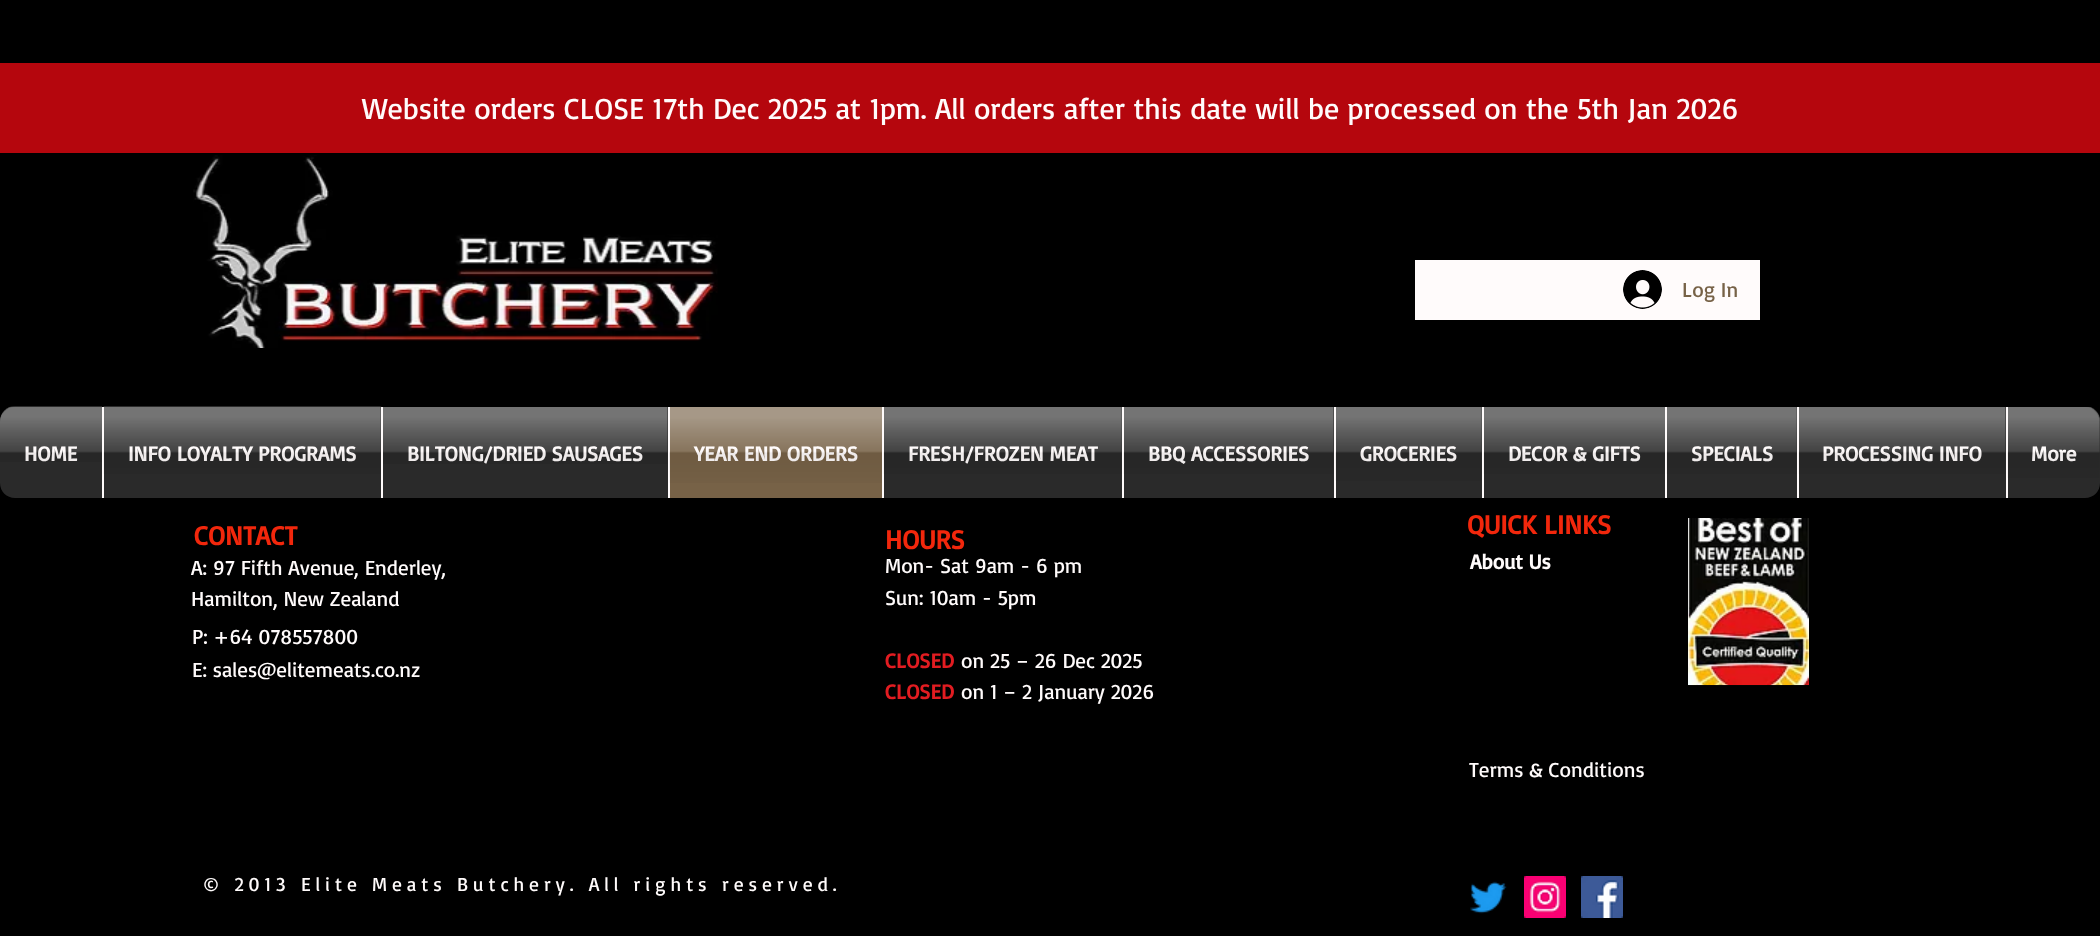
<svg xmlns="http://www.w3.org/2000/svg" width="2100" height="936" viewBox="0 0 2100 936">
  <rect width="100%" height="100%" fill="#000"/>
  <path d="M0 63h2100v90H0z" fill="#b5060d"/>
  <image x="193" y="155" width="525" height="193" href="img/1.png"/>
  <path d="M1415 260h345v60H1415z" fill="#fffbfb"/>
  <image x="1623" y="270" width="39" height="39" href="img/2.png"/>
  <image x="0" y="407" width="2100" height="15" href="img/3.png"/>
  <path d="M15 407H102V498H15C6.5 498 0 491.5 0 483V422C0 413.5 6.5 407 15 407Z" fill="#2a2a2a"/>
  <path d="M104 407h277v91H104z" fill="#2a2a2a"/>
  <path d="M102 407h2v91H102z" fill="#fffbfb"/>
  <path d="M383 407h285v91H383z" fill="#2a2a2a"/>
  <path d="M670 407h212v91H670z" fill="#776247"/>
  <path d="M668 407h2v91H668z" fill="#fffbfb"/>
  <path d="M884 407h238v91H884z" fill="#2a2a2a"/>
  <path d="M882 407h2v91H882z" fill="#fffbfb"/>
  <path d="M1124 407h210v91H1124z" fill="#2a2a2a"/>
  <path d="M1122 407h2v91H1122z" fill="#fffbfb"/>
  <path d="M1336 407h146v91H1336z" fill="#2a2a2a"/>
  <path d="M1334 407h2v91H1334z" fill="#fffbfb"/>
  <path d="M1484 407h181v91H1484z" fill="#2a2a2a"/>
  <path d="M1482 407h2v91H1482z" fill="#fffbfb"/>
  <path d="M1667 407h130v91H1667z" fill="#2a2a2a"/>
  <path d="M1665 407h2v91H1665z" fill="#fffbfb"/>
  <path d="M1799 407h207v91H1799z" fill="#2a2a2a"/>
  <path d="M1797 407h2v91H1797z" fill="#fffbfb"/>
  <path d="M2006 407H2085C2093.5 407 2100 413.5 2100 422V483C2100 491.5 2093.5 498 2085 498H2006Z" fill="#2a2a2a"/>
  <path d="M2006 407h2v91H2006z" fill="#fffbfb"/>
  <image x="1688" y="518" width="121" height="168" href="img/15.png"/>
  <image x="1470" y="881" width="37" height="33" href="img/16.png"/>
  <image x="1524" y="876" width="42" height="42" href="img/17.png"/>
  <image x="1581" y="876" width="42" height="42" href="img/18.png"/>
  <text x="362" y="119" font-family="Basic" font-size="30" fill="#fffbfb">Website orders CLOSE 17th Dec 2025 at 1pm. All orders after this date will be processed on the 5th Jan 2026</text>
  <text x="1682" y="297" font-family="Basic" font-size="21" fill="#776247">Log In</text>
  <text x="24" y="461" font-family="Basic" font-size="21" font-weight="bold" fill="#fffbfb">HOME</text>
  <image x="0" y="406" width="102" height="56" href="img/4.png"/>
  <text x="128" y="461" font-family="Basic" font-size="21" font-weight="bold" fill="#fffbfb">INFO LOYALTY PROGRAMS</text>
  <image x="103" y="406" width="279" height="68" href="img/5.png"/>
  <path d="M381 407h2v91H381z" fill="#fffbfb"/>
  <text x="407" y="461" font-family="Basic" font-size="21" font-weight="bold" fill="#fffbfb">BILTONG/DRIED SAUSAGES</text>
  <image x="383" y="407" width="285" height="57" href="img/6.png"/>
  <text x="694" y="461" font-family="Basic" font-size="21" font-weight="bold" fill="#fffbfb">YEAR END ORDERS</text>
  <image x="669" y="407" width="213" height="76" href="img/7.png"/>
  <text x="908" y="461" font-family="Basic" font-size="21" font-weight="bold" fill="#fffbfb">FRESH/FROZEN MEAT</text>
  <image x="883" y="407" width="239" height="67" href="img/8.png"/>
  <text x="1148" y="461" font-family="Basic" font-size="21" font-weight="bold" fill="#fffbfb">BBQ ACCESSORIES</text>
  <image x="1123" y="407" width="211" height="67" href="img/9.png"/>
  <text x="1360" y="461" font-family="Basic" font-size="21" font-weight="bold" fill="#fffbfb">GROCERIES</text>
  <image x="1335" y="407" width="147" height="74" href="img/10.png"/>
  <text x="1508" y="461" font-family="Basic" font-size="21" font-weight="bold" fill="#fffbfb">DECOR &amp; GIFTS</text>
  <image x="1483" y="407" width="182" height="67" href="img/11.png"/>
  <text x="1691" y="461" font-family="Basic" font-size="21" font-weight="bold" fill="#fffbfb">SPECIALS</text>
  <image x="1666" y="407" width="131" height="67" href="img/12.png"/>
  <text x="1822" y="461" font-family="Basic" font-size="21" font-weight="bold" fill="#fffbfb">PROCESSING INFO</text>
  <image x="1798" y="407" width="208" height="67" href="img/13.png"/>
  <text x="2031" y="461" font-family="Basic" font-size="21" font-weight="bold" fill="#fffbfb">More</text>
  <image x="2007" y="407" width="93" height="71" href="img/14.png"/>
  <g font-family="Basic" font-size="27" font-weight="bold" fill="#f2270c">
    <text x="194" y="545">CONTACT</text>
    <text x="885" y="549">HOURS</text>
    <text x="1467" y="534">QUICK LINKS</text>
  </g>
  <g font-family="Basic" font-size="21" fill="#fffbfb">
    <text x="191" y="575">A: 97 Fifth Avenue, Enderley,</text>
    <text x="191" y="606">Hamilton, New Zealand</text>
    <text x="885" y="573">Mon- Sat 9am - 6 pm</text>
    <text x="885" y="605">Sun: 10am - 5pm</text>
  </g>
  <text x="885" y="668" font-family="Basic" font-size="21" font-weight="bold" fill="#e21c21">CLOSED</text>
  <text x="961" y="668" font-family="Basic" font-size="21" fill="#fffbfb">on 25 – 26 Dec 2025</text>
  <text x="885" y="699" font-family="Basic" font-size="21" font-weight="bold" fill="#e21c21">CLOSED</text>
  <text x="961" y="699" font-family="Basic" font-size="21" fill="#fffbfb">on 1 – 2 January 2026</text>
  <text x="1470" y="569" font-family="Basic" font-size="21" font-weight="bold" fill="#fffbfb">About Us</text>
  <g font-family="Basic" font-size="21" fill="#fffbfb">
    <text x="192" y="644">P: +64 078557800</text>
    <text x="192" y="677">E: sales@elitemeats.co.nz</text>
    <text x="1469" y="777">Terms &amp; Conditions</text>
  </g>
  <text x="203" y="891" font-family="Basic" font-size="19.5" letter-spacing="4.9" fill="#fffbfb">© 2013 Elite Meats Butchery. All rights reserved.</text>
</svg>
